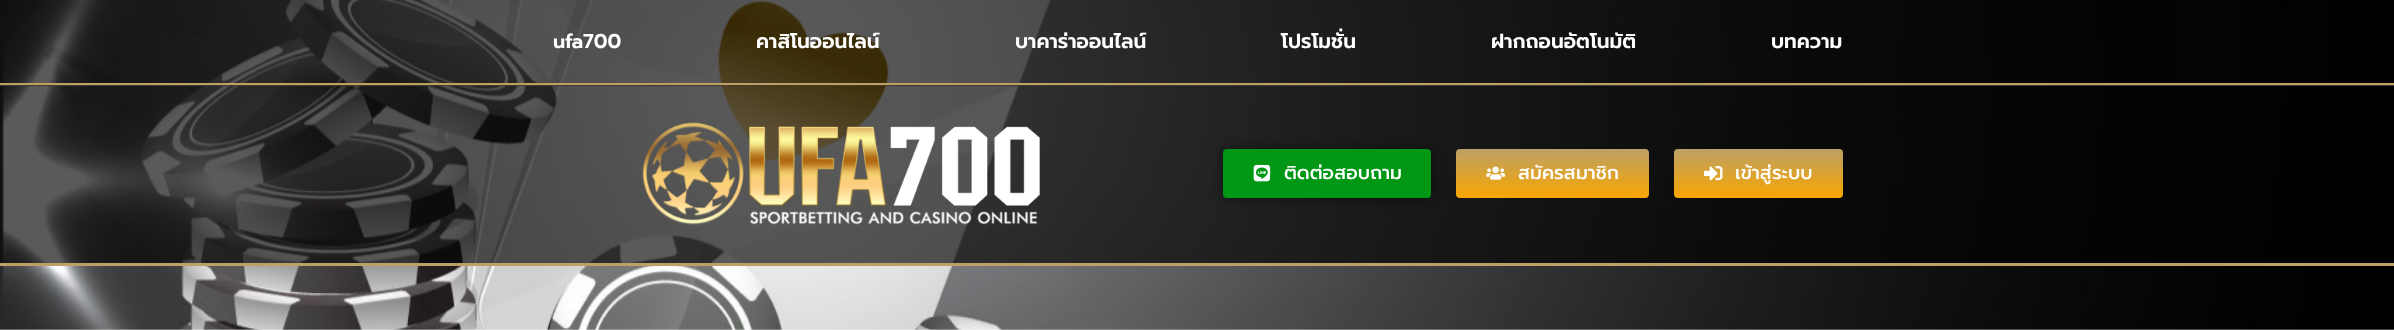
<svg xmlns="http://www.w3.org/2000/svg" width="2394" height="330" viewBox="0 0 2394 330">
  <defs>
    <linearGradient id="g1" gradientUnits="userSpaceOnUse" x1="1553" y1="149" x2="1553" y2="198"><stop offset="0" stop-color="#bda065"/><stop offset="1" stop-color="#f8a600"/></linearGradient>
    <linearGradient id="g2" gradientUnits="userSpaceOnUse" x1="1758" y1="149" x2="1758" y2="198"><stop offset="0" stop-color="#bda065"/><stop offset="1" stop-color="#f8a600"/></linearGradient>
  </defs>
  <rect width="100%" height="100%" fill="#fff"/>
  <image x="0" y="0" width="2394" height="330" href="img/1.png"/>
  <path d="M0 0h2177v83H0z" fill="#020101a6"/>
  <path d="M0 83h2394v3H0z" fill="#bda065"/>
  <path d="M0 85h2394v178H0z" fill="#020101a6"/>
  <path d="M0 263h2394v3H0z" fill="#bda065"/>
  <image x="642" y="122" width="398" height="103" href="img/2.png"/>
  <rect x="1223" y="149" width="208" height="49" rx="4" fill="#00000080" filter="blur(6px)"/>
  <rect x="1223" y="149" width="208" height="49" rx="4" fill="#009715"/>
  <image x="1253" y="164" width="18" height="18" href="img/3.png"/>
  <rect x="1456" y="149" width="193" height="49" rx="4" fill="url(#g1)"/>
  <image x="1486" y="166" width="19" height="14" href="img/4.png"/>
  <rect x="1674" y="149" width="169" height="49" rx="4" fill="url(#g2)"/>
  <image x="1704" y="166" width="19" height="15" href="img/5.png"/>
  <g font-family="Prompt" font-size="20" font-weight="600" fill="#fff">
    <text x="553" y="48">ufa700</text>
    <text x="756" y="48">คาสิโนออนไลน์</text>
    <text x="1015" y="48">บาคาร่าออนไลน์</text>
    <text x="1281" y="48">โปรโมชั่น</text>
    <text x="1491" y="48">ฝากถอนอัตโนมัติ</text>
    <text x="1771" y="48">บทความ</text>
  </g>
  <g font-family="Prompt" font-size="18.75" font-weight="500" fill="#fff">
    <text x="1284" y="179">ติดต่อสอบถาม</text>
    <text x="1518" y="179">สมัครสมาชิก</text>
    <text x="1735" y="179">เข้าสู่ระบบ</text>
  </g>
</svg>
